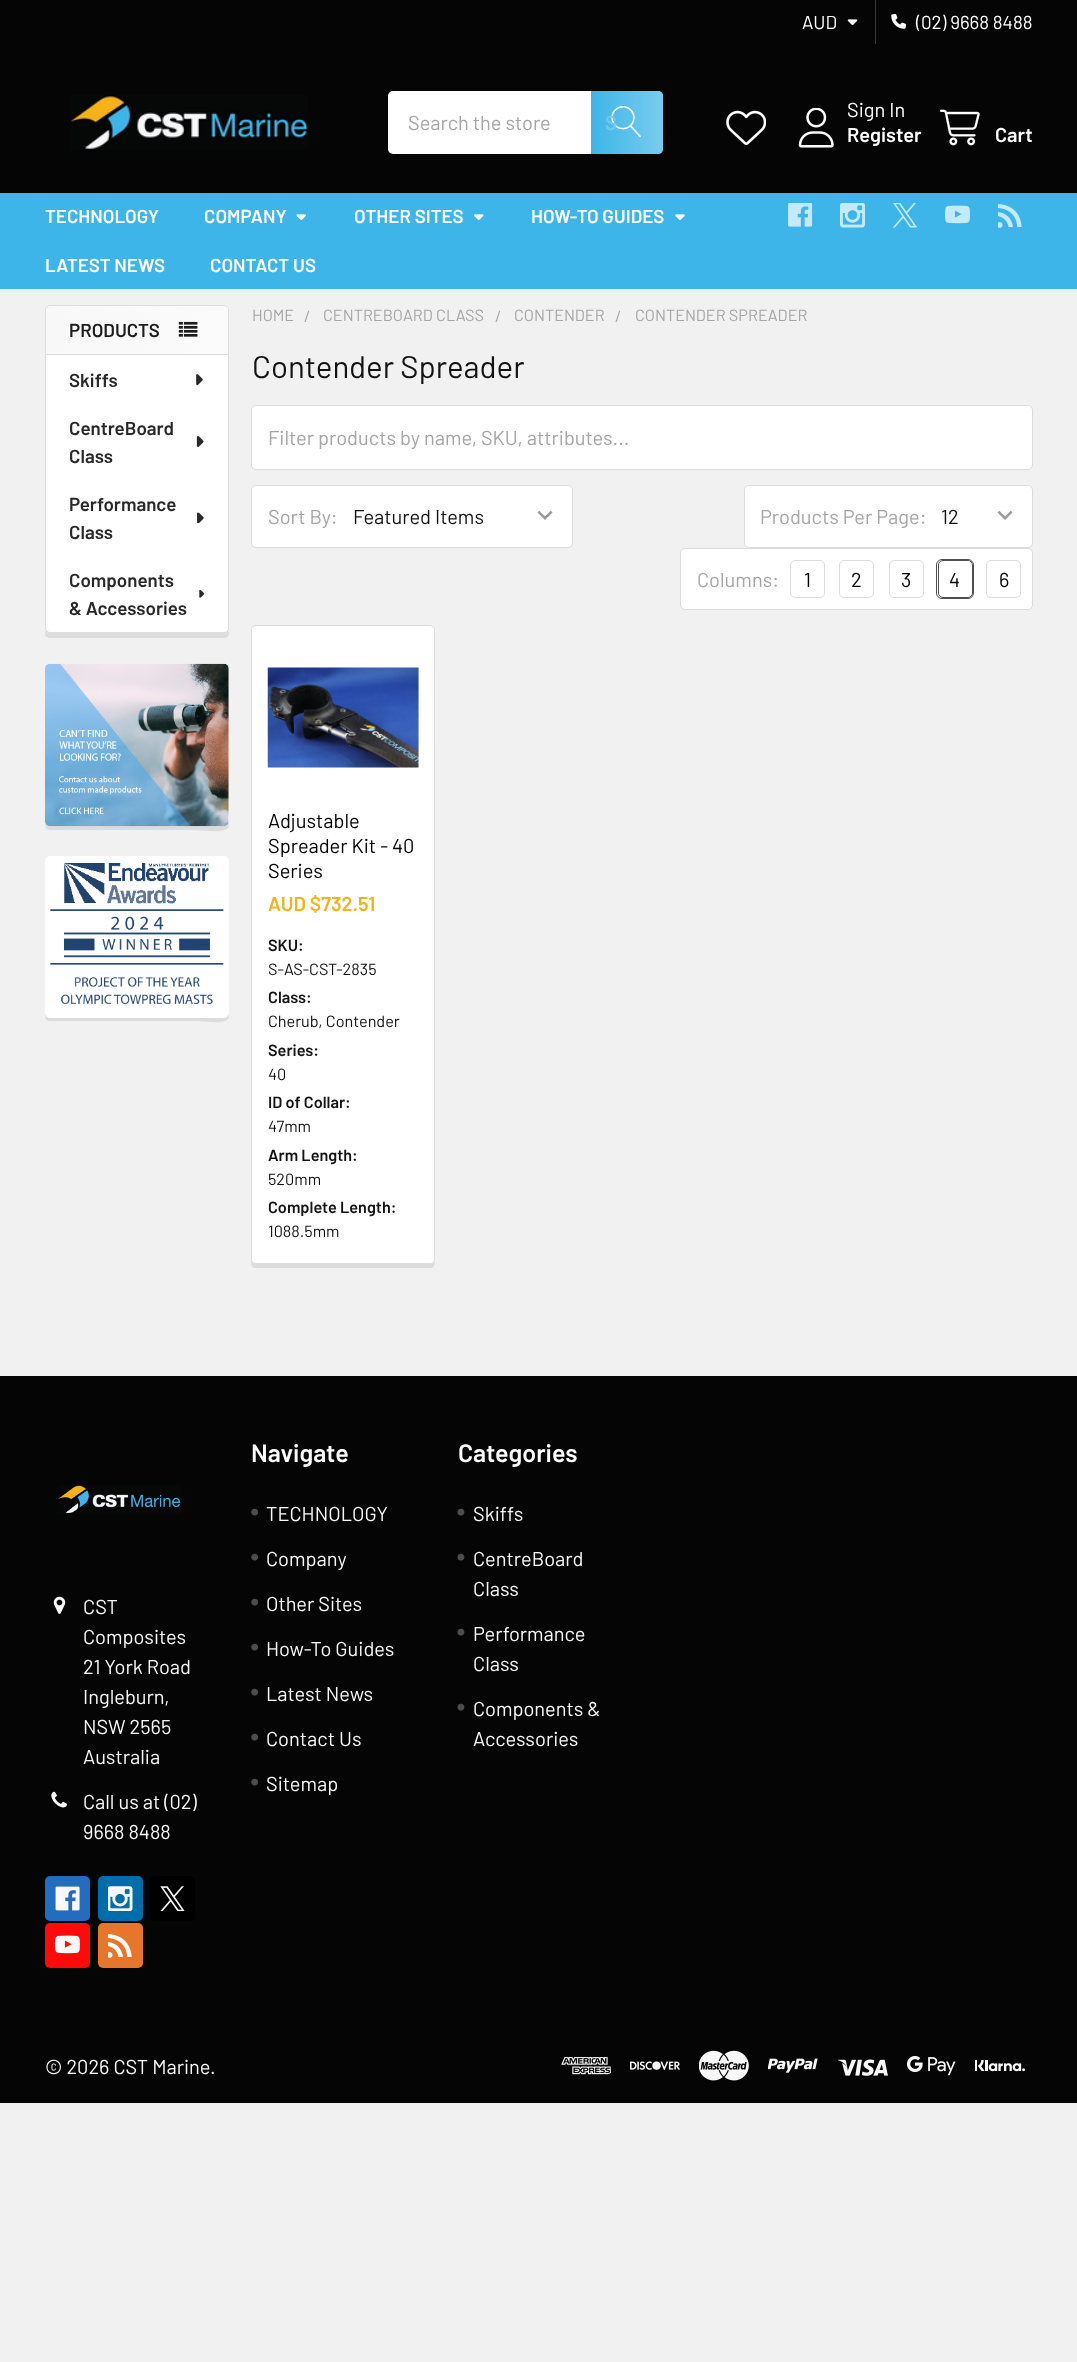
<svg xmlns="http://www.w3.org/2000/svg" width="1077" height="2362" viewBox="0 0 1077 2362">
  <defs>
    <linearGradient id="g1" gradientUnits="userSpaceOnUse" x1="591" y1="123" x2="663" y2="123"><stop offset="0" stop-color="#3eb5e8"/><stop offset="1" stop-color="#3eb5e8" stop-opacity="0.7"/></linearGradient>
    <linearGradient id="g2" gradientUnits="userSpaceOnUse" x1="45" y1="469" x2="229" y2="469"><stop offset="0" stop-color="#f8f8f8"/><stop offset="1" stop-color="#f8f8f8" stop-opacity="0.6"/></linearGradient>
  </defs>
  <rect width="100%" height="100%" fill="#f1f1f2"/>
  <path d="M0 0h1077v193H0z" fill="#050505"/>
  <image x="847" y="19" width="11" height="6" href="img/1.png"/>
  <path d="M875 0h1v44H875z" fill="#373737"/>
  <image x="891" y="14" width="15" height="15" href="img/2.png"/>
  <image x="71" y="95" width="237" height="55" href="img/3.png"/>
  <rect x="388" y="91" width="275" height="63" rx="5" fill="#fff"/>
  <path d="M591 91H658C661 91 663 93 663 96V149C663 152 661 154 658 154H591Z" fill="url(#g1)"/>
  <image x="611" y="106" width="30" height="32" href="img/4.png"/>
  <image x="726" y="110" width="40" height="35" href="img/5.png"/>
  <image x="798" y="108" width="36" height="40" href="img/6.png"/>
  <image x="940" y="109" width="40" height="37" href="img/7.png"/>
  <path d="M0 193h1077v96H0z" fill="#3eb5e8"/>
  <image x="296" y="214" width="10" height="6" href="img/8.png"/>
  <image x="474" y="214" width="10" height="6" href="img/9.png"/>
  <image x="675" y="214" width="10" height="6" href="img/10.png"/>
  <image x="788" y="203" width="25" height="24" href="img/11.png"/>
  <image x="840" y="203" width="25" height="25" href="img/12.png"/>
  <image x="893" y="203" width="25" height="25" href="img/13.png"/>
  <image x="945" y="205" width="25" height="19" href="img/14.png"/>
  <image x="998" y="204" width="24" height="24" href="img/15.png"/>
  <path d="M45 629V633C45 636 47 638 50 638H224C227 638 229 636 229 633V312V629C229 632 227 634 224 634H50C47 634 45 632 45 629Z" fill="#dcdcdc"/>
  <rect x="45" y="305" width="184" height="329" rx="5" fill="#fff"/>
  <rect x="45" y="305" width="184" height="329" rx="5" fill="url(#g2)"/>
  <path d="M50 305.5H224C226.5 305.5 228.5 307.5 228.5 310V354.5H45.5V310C45.5 307.5 47.5 305.5 50 305.5Z" fill="none" stroke="#dcdcdc"/>
  <image x="178" y="321" width="20" height="16" href="img/16.png"/>
  <path d="M45 355H229V629C229 632 227 634 224 634H50C47 634 45 632 45 629Z" fill="#fff"/>
  <path d="M45 355H229V629C229 632 227 634 224 634H50C47 634 45 632 45 629ZM46 355H228V629C228 631 226 632 224 632H50C48 632 46 631 46 629Z" fill="#dcdcdc" fill-rule="evenodd"/>
  <image x="196" y="374" width="7" height="12" href="img/17.png"/>
  <image x="196" y="436" width="8" height="11" href="img/18.png"/>
  <image x="197" y="512" width="7" height="12" href="img/19.png"/>
  <image x="199" y="590" width="6" height="8" href="img/20.png"/>
  <rect x="251.5" y="405.5" width="781" height="64" rx="4.5" fill="#fff" stroke="#dcdcdc"/>
  <rect x="251.5" y="485.5" width="321" height="62" rx="4.5" fill="#fff" stroke="#dcdcdc"/>
  <image x="537" y="510" width="16" height="10" href="img/21.png"/>
  <rect x="744.5" y="485.5" width="288" height="62" rx="4.5" fill="#fff" stroke="#dcdcdc"/>
  <image x="997" y="510" width="16" height="10" href="img/21.png"/>
  <rect x="680.5" y="548.5" width="352" height="61" rx="4.5" fill="#fff" stroke="#dcdcdc"/>
  <rect x="790.5" y="560.5" width="34" height="37" rx="4.5" fill="none" stroke="#dcdcdc"/>
  <rect x="839.5" y="560.5" width="34" height="37" rx="4.5" fill="none" stroke="#dcdcdc"/>
  <rect x="889.5" y="560.5" width="34" height="37" rx="4.5" fill="none" stroke="#dcdcdc"/>
  <rect x="936.5" y="559.5" width="37" height="39" rx="5.5" fill="none" stroke="#4f4f4f"/>
  <rect x="938.5" y="560.5" width="34" height="37" rx="4.5" fill="none" stroke="#4f4f4f"/>
  <rect x="986.5" y="560.5" width="34" height="37" rx="4.5" fill="none" stroke="#dcdcdc"/>
  <path d="M251 632V1263C251 1266 253 1268 256 1268H430C433 1268 435 1266 435 1263V1259C435 1262 433 1264 430 1264H256C253 1264 251 1262 251 1259Z" fill="#dcdcdc"/>
  <rect x="251.5" y="625.5" width="183" height="638" rx="4.5" fill="#fff" stroke="#dcdcdc"/>
  <image x="267" y="667" width="152" height="101" href="img/22.png"/>
  <path d="M45 821C45 825 45 830 50 830H195C205 830 229 835 229 825V671V821C229 824 227 826 224 826H50C47 826 45 824 45 821Z" fill="#dcdcdc"/>
  <rect x="45" y="664" width="184" height="162" rx="5" fill="#fff"/>
  <image x="45" y="663" width="184" height="164" href="img/23.png"/>
  <path d="M45 1012C45 1016 45 1021 50 1021H195C205 1021 229 1026 229 1016V863V1012C229 1015 227 1018 224 1018H50C47 1018 45 1015 45 1012Z" fill="#dcdcdc"/>
  <rect x="45" y="856" width="184" height="162" rx="5" fill="#fff"/>
  <image x="50" y="862" width="174" height="142" href="img/24.png"/>
  <path d="M0 1376h1077v727H0z" fill="#050505"/>
  <image x="58" y="1485" width="123" height="29" href="img/25.png"/>
  <image x="53" y="1596" width="13" height="18" href="img/26.png"/>
  <image x="51" y="1791" width="16" height="17" href="img/27.png"/>
  <rect x="45" y="1876" width="45" height="45" rx="5" fill="#236cbe"/>
  <image x="55" y="1886" width="25" height="25" href="img/28.png"/>
  <rect x="98" y="1876" width="45" height="45" rx="5" fill="#006dab"/>
  <image x="108" y="1886" width="25" height="25" href="img/29.png"/>
  <rect x="150" y="1876" width="45" height="45" rx="5" fill="#000"/>
  <image x="160" y="1886" width="25" height="25" href="img/30.png"/>
  <rect x="45" y="1923" width="45" height="45" rx="5" fill="#ff0a0a"/>
  <image x="55" y="1935" width="25" height="19" href="img/31.png"/>
  <rect x="98" y="1923" width="45" height="45" rx="5" fill="#e8762a"/>
  <image x="108" y="1934" width="24" height="24" href="img/32.png"/>
  <image x="251" y="1508" width="7" height="8" href="img/33.png"/>
  <image x="251" y="1553" width="7" height="8" href="img/33.png"/>
  <image x="251" y="1598" width="7" height="8" href="img/33.png"/>
  <image x="251" y="1643" width="7" height="8" href="img/33.png"/>
  <image x="251" y="1688" width="7" height="8" href="img/33.png"/>
  <image x="251" y="1733" width="7" height="8" href="img/33.png"/>
  <image x="251" y="1778" width="7" height="8" href="img/33.png"/>
  <image x="457" y="1508" width="8" height="8" href="img/34.png"/>
  <image x="457" y="1553" width="8" height="8" href="img/34.png"/>
  <image x="457" y="1628" width="8" height="8" href="img/34.png"/>
  <image x="457" y="1703" width="8" height="8" href="img/34.png"/>
  <image x="561" y="2057" width="50" height="18" href="img/35.png"/>
  <image x="630" y="2061" width="50" height="9" href="img/36.png"/>
  <image x="699" y="2050" width="50" height="31" href="img/37.png"/>
  <image x="768" y="2058" width="50" height="15" href="img/38.png"/>
  <image x="838" y="2059" width="50" height="17" href="img/39.png"/>
  <image x="907" y="2056" width="49" height="20" href="img/40.png"/>
  <image x="975" y="2060" width="50" height="12" href="img/41.png"/>
  <g font-family="Barlow" font-size="18.75" fill="#fff">
    <text x="802" y="29">AUD</text>
    <text x="916" y="29">(02) 9668 8488</text>
  </g>
  <text x="408" y="130" font-family="Barlow" font-size="20" fill="#a5a5a5">Search the store</text>
  <text x="605" y="130" font-family="Barlow" font-size="20" font-weight="600" fill="#72c9ee">S</text>
  <text x="847" y="117" font-family="Barlow" font-size="20" fill="#fff">Sign In</text>
  <g font-family="Barlow" font-size="20" font-weight="600" fill="#fff">
    <text x="847" y="142">Register</text>
    <text x="995" y="142">Cart</text>
  </g>
  <g font-family="Barlow" font-size="18.75" font-weight="600" fill="#fff">
    <text x="45" y="223">TECHNOLOGY</text>
    <text x="204" y="223">COMPANY</text>
    <text x="354" y="223">OTHER SITES</text>
    <text x="531" y="223">HOW-TO GUIDES</text>
    <text x="45" y="272">LATEST NEWS</text>
    <text x="210" y="272">CONTACT US</text>
  </g>
  <text x="69" y="337" font-family="Barlow" font-size="18.75" font-weight="600" fill="#1d1d1d">PRODUCTS</text>
  <g font-family="Barlow" font-size="18.75" font-weight="600" fill="#282828">
    <text x="69" y="387">Skiffs</text>
    <text x="69" y="435">CentreBoard</text>
    <text x="69" y="463">Class</text>
    <text x="69" y="511">Performance</text>
    <text x="69" y="539">Class</text>
    <text x="69" y="587">Components</text>
    <text x="69" y="615">&amp; Accessories</text>
  </g>
  <g font-family="Barlow" font-size="16.25" fill="#a5a5a5">
    <text x="252" y="321">HOME</text>
    <text x="304" y="322">/</text>
    <text x="323" y="321">CENTREBOARD CLASS</text>
    <text x="495" y="322">/</text>
    <text x="514" y="321">CONTENDER</text>
    <text x="615" y="322">/</text>
    <text x="635" y="321">CONTENDER SPREADER</text>
  </g>
  <text x="252" y="378" font-family="Barlow" font-size="31.25" fill="#131313">Contender Spreader</text>
  <g font-family="Barlow" font-size="20" fill="#a5a5a5">
    <text x="268" y="445">Filter products by name, SKU, attributes...</text>
    <text x="268" y="524">Sort By:</text>
  </g>
  <text x="353" y="524" font-family="Barlow" font-size="20" fill="#131313">Featured Items</text>
  <text x="760" y="524" font-family="Barlow" font-size="20" fill="#a5a5a5">Products Per Page:</text>
  <text x="941" y="524" font-family="Barlow" font-size="20" fill="#131313">12</text>
  <text x="697" y="587" font-family="Barlow" font-size="20" fill="#a5a5a5">Columns:</text>
  <g font-family="Barlow" font-size="20" fill="#000">
    <text x="804" y="587">1</text>
    <text x="851" y="587">2</text>
    <text x="901" y="587">3</text>
    <text x="949" y="587">4</text>
    <text x="999" y="587">6</text>
    <text x="268" y="828">Adjustable</text>
    <text x="268" y="853">Spreader Kit - 40</text>
    <text x="268" y="878">Series</text>
  </g>
  <text x="268" y="911" font-family="Barlow" font-size="20" font-weight="600" fill="#f5b219">AUD $732.51</text>
  <text x="268" y="951" font-family="Barlow" font-size="16.25" font-weight="600" fill="#131313">SKU:</text>
  <text x="268" y="975" font-family="Barlow" font-size="16.25" fill="#131313">S-AS-CST-2835</text>
  <text x="268" y="1003" font-family="Barlow" font-size="16.25" font-weight="600" fill="#131313">Class:</text>
  <text x="268" y="1027" font-family="Barlow" font-size="16.25" fill="#131313">Cherub, Contender</text>
  <text x="268" y="1056" font-family="Barlow" font-size="16.25" font-weight="600" fill="#131313">Series:</text>
  <text x="268" y="1080" font-family="Barlow" font-size="16.25" fill="#131313">40</text>
  <text x="268" y="1108" font-family="Barlow" font-size="16.25" font-weight="600" fill="#131313">ID of Collar:</text>
  <text x="268" y="1132" font-family="Barlow" font-size="16.25" fill="#131313">47mm</text>
  <text x="268" y="1161" font-family="Barlow" font-size="16.25" font-weight="600" fill="#131313">Arm Length:</text>
  <text x="268" y="1185" font-family="Barlow" font-size="16.25" fill="#131313">520mm</text>
  <text x="268" y="1213" font-family="Barlow" font-size="16.25" font-weight="600" fill="#131313">Complete Length:</text>
  <text x="268" y="1237" font-family="Barlow" font-size="16.25" fill="#131313">1088.5mm</text>
  <g font-family="Barlow" font-size="20" fill="#f8f8f8">
    <text x="83" y="1614">CST</text>
    <text x="83" y="1644">Composites</text>
    <text x="83" y="1674">21 York Road</text>
    <text x="83" y="1704">Ingleburn,</text>
    <text x="83" y="1734">NSW 2565</text>
    <text x="83" y="1764">Australia</text>
    <text x="83" y="1809">Call us at (02)</text>
    <text x="83" y="1839">9668 8488</text>
  </g>
  <text x="251" y="1462" font-family="Barlow" font-size="25" font-weight="600" fill="#fff">Navigate</text>
  <g font-family="Barlow" font-size="20" fill="#f8f8f8">
    <text x="266" y="1521">TECHNOLOGY</text>
    <text x="266" y="1566">Company</text>
    <text x="266" y="1611">Other Sites</text>
    <text x="266" y="1656">How-To Guides</text>
    <text x="266" y="1701">Latest News</text>
    <text x="266" y="1746">Contact Us</text>
    <text x="266" y="1791">Sitemap</text>
  </g>
  <text x="458" y="1462" font-family="Barlow" font-size="25" font-weight="600" fill="#fff">Categories</text>
  <g font-family="Barlow" font-size="20" fill="#f8f8f8">
    <text x="473" y="1521">Skiffs</text>
    <text x="473" y="1566">CentreBoard</text>
    <text x="473" y="1596">Class</text>
    <text x="473" y="1641">Performance</text>
    <text x="473" y="1671">Class</text>
    <text x="473" y="1716">Components &amp;</text>
    <text x="473" y="1746">Accessories</text>
    <text x="45" y="2074">© 2026 CST Marine.</text>
  </g>
</svg>
